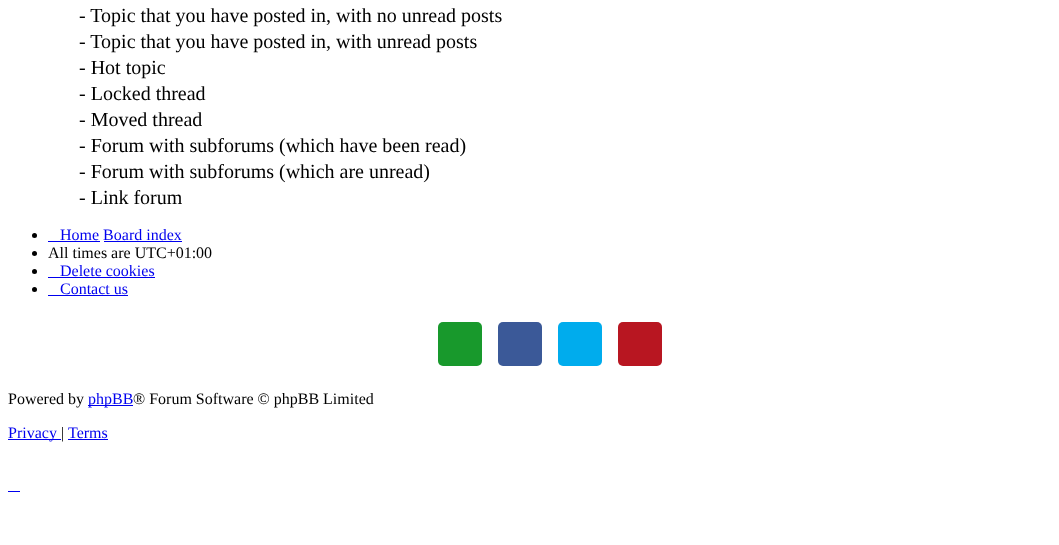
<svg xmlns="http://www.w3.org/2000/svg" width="1059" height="545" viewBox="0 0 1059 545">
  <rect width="100%" height="100%" fill="#fff"/>
  <circle cx="34.5" cy="235.5" r="2.5" fill="#000"/>
  <path d="M48 241h52v1H48z" fill="#00e"/>
  <path d="M104 241h78v1H104z" fill="#00e"/>
  <circle cx="34.5" cy="253.5" r="2.5" fill="#000"/>
  <circle cx="34.5" cy="271.5" r="2.5" fill="#000"/>
  <path d="M48 277h107v1H48z" fill="#00e"/>
  <circle cx="34.5" cy="289.5" r="2.5" fill="#000"/>
  <path d="M48 295h80v1H48z" fill="#00e"/>
  <rect x="438" y="322" width="44" height="44" rx="5" fill="#18992c"/>
  <rect x="498" y="322" width="44" height="44" rx="5" fill="#3b5998"/>
  <rect x="558" y="322" width="44" height="44" rx="5" fill="#00aced"/>
  <rect x="618" y="322" width="44" height="44" rx="5" fill="#b81621"/>
  <path d="M88 405h45v1H88z" fill="#00e"/>
  <path d="M8 439h53v1H8z" fill="#00e"/>
  <path d="M68 439h40v1H68z" fill="#00e"/>
  <path d="M8 491h12v1H8z" fill="#00e"/>
  <g font-family="Liberation Serif" font-size="20" fill="#000">
    <text x="79" y="22">- Topic that you have posted in, with no unread posts</text>
    <text x="79" y="48">- Topic that you have posted in, with unread posts</text>
    <text x="79" y="74">- Hot topic</text>
    <text x="79" y="100">- Locked thread</text>
    <text x="79" y="126">- Moved thread</text>
    <text x="79" y="152">- Forum with subforums (which have been read)</text>
    <text x="79" y="178">- Forum with subforums (which are unread)</text>
    <text x="79" y="204">- Link forum</text>
  </g>
  <text x="60" y="240" font-family="Liberation Serif" font-size="16" fill="#00e">Home Board index</text>
  <text x="48" y="258" font-family="Liberation Serif" font-size="16" fill="#000">All times are UTC+01:00</text>
  <g font-family="Liberation Serif" font-size="16" fill="#00e">
    <text x="60" y="276">Delete cookies</text>
    <text x="60" y="294">Contact us</text>
  </g>
  <text x="8" y="404" font-family="Liberation Serif" font-size="16" fill="#000">Powered by</text>
  <text x="88" y="404" font-family="Liberation Serif" font-size="16" fill="#00e">phpBB</text>
  <text x="133" y="404" font-family="Liberation Serif" font-size="16" fill="#000">® Forum Software © phpBB Limited</text>
  <text x="8" y="438" font-family="Liberation Serif" font-size="16" fill="#00e">Privacy</text>
  <text x="61" y="438" font-family="Liberation Serif" font-size="16" fill="#000">|</text>
  <text x="68" y="438" font-family="Liberation Serif" font-size="16" fill="#00e">Terms</text>
</svg>
